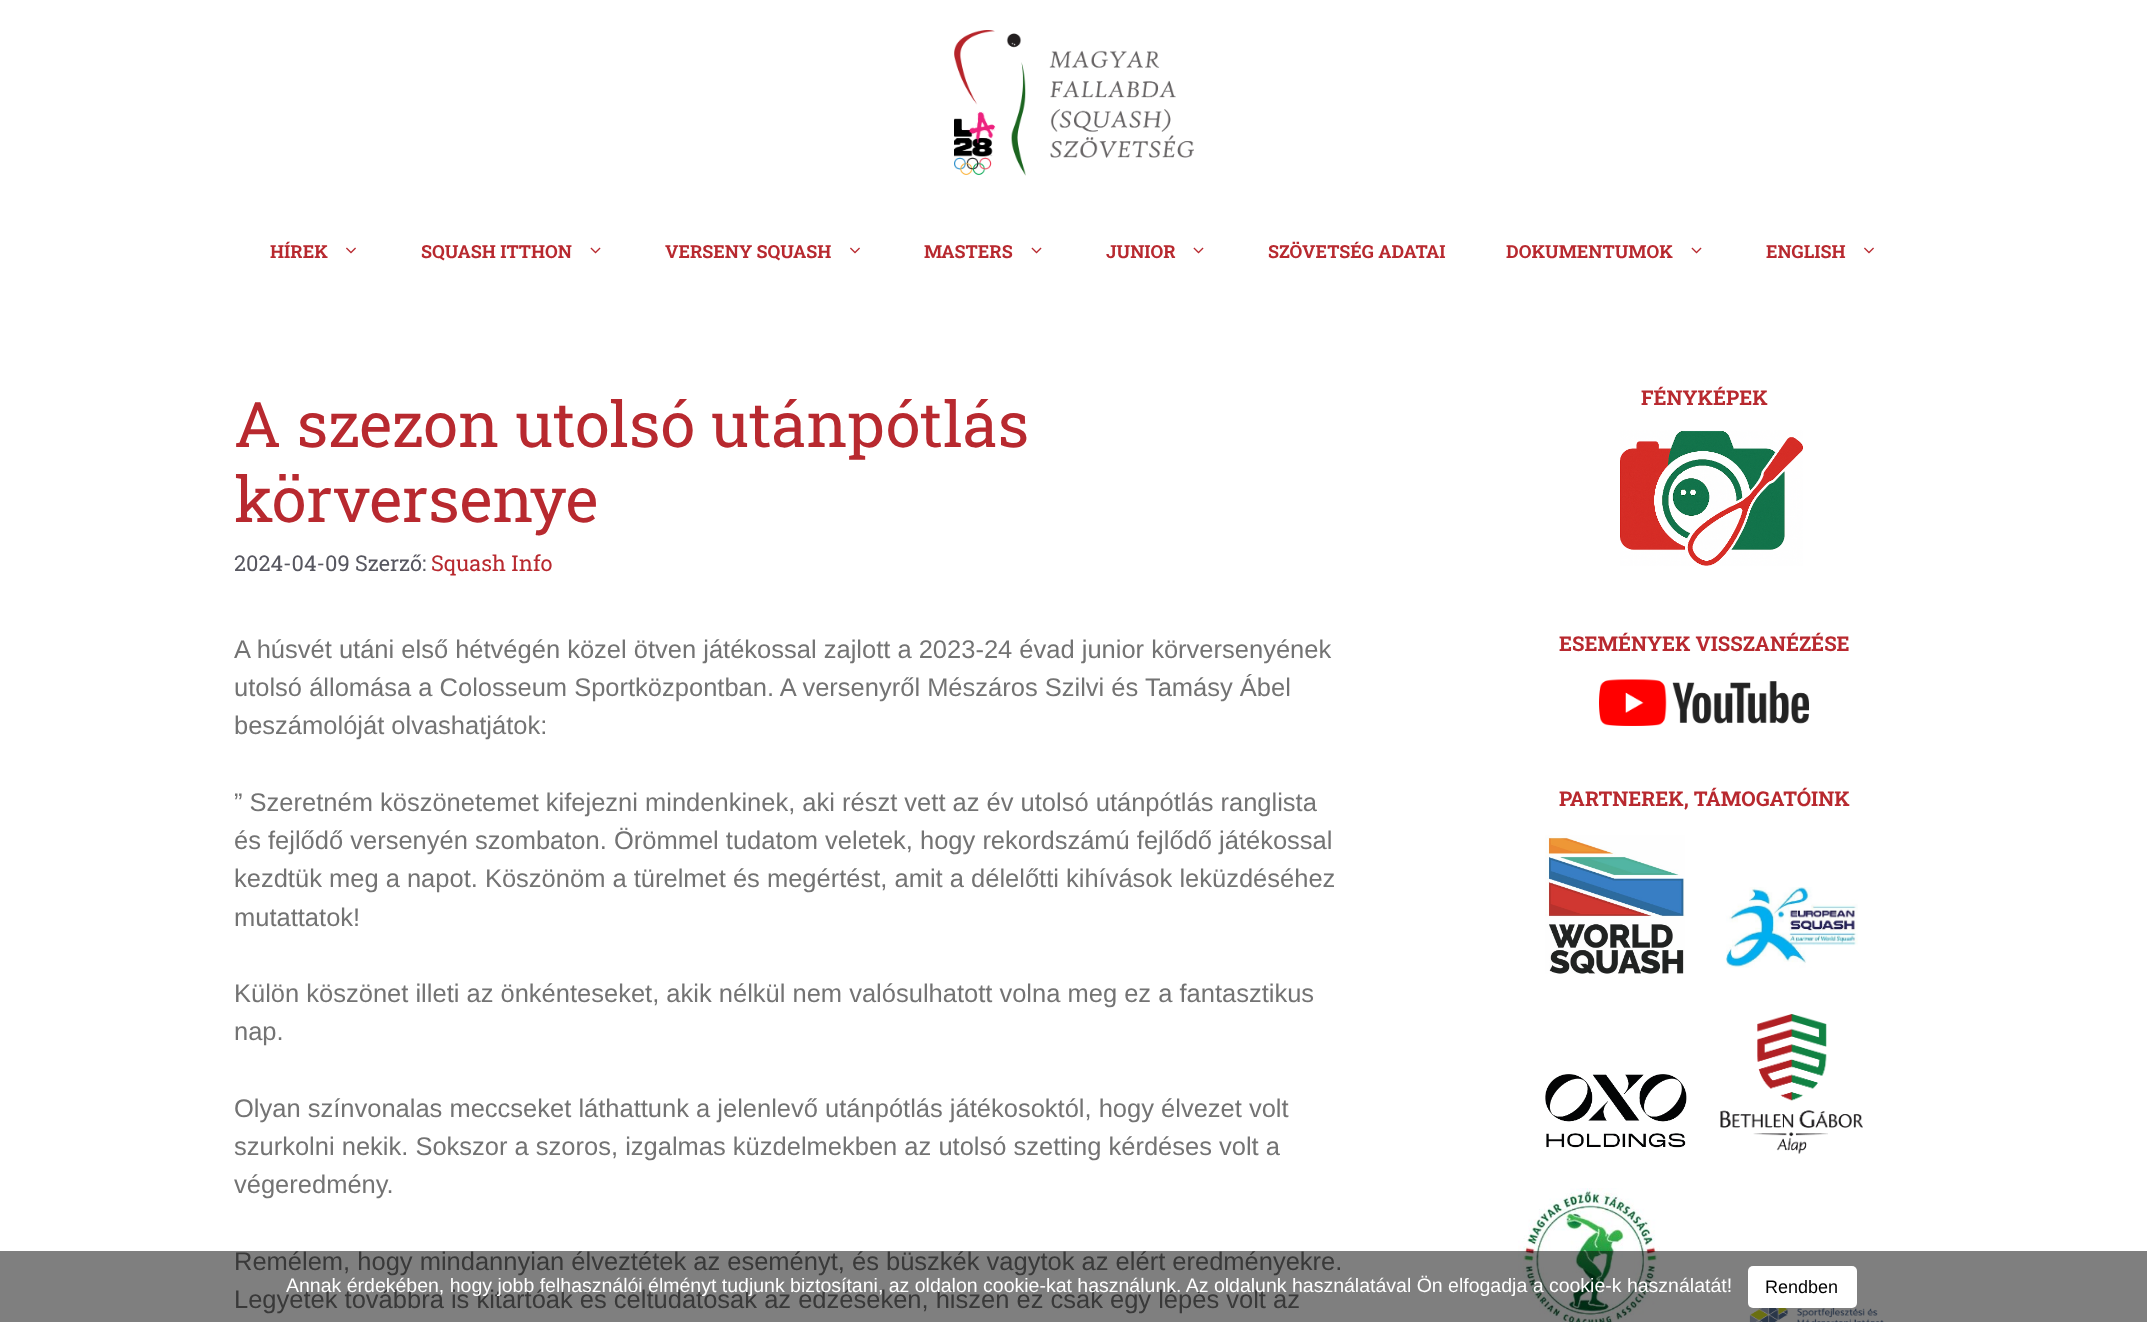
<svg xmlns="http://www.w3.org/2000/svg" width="2147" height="1322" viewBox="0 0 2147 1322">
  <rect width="100%" height="100%" fill="#fff"/>
  <image x="954" y="30" width="240" height="146" href="img/1.png"/>
  <image x="346" y="247" width="10" height="7" href="img/2.png"/>
  <image x="590" y="247" width="11" height="7" href="img/3.png"/>
  <image x="850" y="247" width="10" height="7" href="img/2.png"/>
  <image x="1031" y="247" width="11" height="7" href="img/3.png"/>
  <image x="1193" y="247" width="11" height="7" href="img/3.png"/>
  <image x="1691" y="247" width="11" height="7" href="img/3.png"/>
  <image x="1864" y="247" width="10" height="7" href="img/2.png"/>
  <image x="1620" y="430" width="183" height="136" href="img/4.png"/>
  <image x="1599" y="679" width="210" height="47" href="img/5.png"/>
  <image x="1545" y="835" width="140" height="139" href="img/6.png"/>
  <image x="1725" y="887" width="133" height="81" href="img/7.png"/>
  <image x="1545" y="1074" width="142" height="74" href="img/8.png"/>
  <image x="1720" y="1014" width="143" height="140" href="img/9.png"/>
  <image x="1518" y="1188" width="142" height="134" href="img/10.png"/>
  <image x="1749" y="1293" width="135" height="29" href="img/11.png"/>
  <g font-family="Roboto Slab" font-size="18" font-weight="bold" fill="#b8292f">
    <text x="270" y="258">HÍREK</text>
    <text x="421" y="258">SQUASH ITTHON</text>
    <text x="665" y="258">VERSENY SQUASH</text>
    <text x="924" y="258">MASTERS</text>
    <text x="1106" y="258">JUNIOR</text>
    <text x="1268" y="258">SZÖVETSÉG ADATAI</text>
    <text x="1506" y="258">DOKUMENTUMOK</text>
    <text x="1766" y="258">ENGLISH</text>
  </g>
  <g font-family="Roboto Slab" font-size="63" fill="#b8292f">
    <text x="234" y="447">A szezon utolsó utánpótlás</text>
    <text x="234" y="522">körversenye</text>
  </g>
  <text x="234" y="571" font-family="Roboto Slab" font-size="21.75" fill="#575760">2024-04-09 Szerző:</text>
  <text x="431" y="571" font-family="Roboto Slab" font-size="21.75" fill="#b8292f">Squash Info</text>
  <g font-family="Arimo" font-size="25.5" fill="#737373">
    <text x="234" y="658">A húsvét utáni első hétvégén közel ötven játékossal zajlott a 2023-24 évad junior körversenyének</text>
    <text x="234" y="696">utolsó állomása a Colosseum Sportközpontban. A versenyről Mészáros Szilvi és Tamásy Ábel</text>
    <text x="234" y="734">beszámolóját olvashatjátok:</text>
    <text x="234" y="811">” Szeretném köszönetemet kifejezni mindenkinek, aki részt vett az év utolsó utánpótlás ranglista</text>
    <text x="234" y="849">és fejlődő versenyén szombaton. Örömmel tudatom veletek, hogy rekordszámú fejlődő játékossal</text>
    <text x="234" y="887">kezdtük meg a napot. Köszönöm a türelmet és megértést, amit a délelőtti kihívások leküzdéséhez</text>
    <text x="234" y="926">mutattatok!</text>
    <text x="234" y="1002">Külön köszönet illeti az önkénteseket, akik nélkül nem valósulhatott volna meg ez a fantasztikus</text>
    <text x="234" y="1040">nap.</text>
    <text x="234" y="1117">Olyan színvonalas meccseket láthattunk a jelenlevő utánpótlás játékosoktól, hogy élvezet volt</text>
    <text x="234" y="1155">szurkolni nekik. Sokszor a szoros, izgalmas küzdelmekben az utolsó szetting kérdéses volt a</text>
    <text x="234" y="1193">végeredmény.</text>
    <text x="234" y="1270">Remélem, hogy mindannyian élveztétek az eseményt, és büszkék vagytok az elért eredményekre.</text>
    <text x="234" y="1308">Legyetek továbbra is kitartóak és céltudatosak az edzéseken, hiszen ez csak egy lépés volt az</text>
  </g>
  <g font-family="Roboto Slab" font-size="20.4" font-weight="bold" fill="#b8292f">
    <text x="1641" y="405">FÉNYKÉPEK</text>
    <text x="1559" y="651">ESEMÉNYEK VISSZANÉZÉSE</text>
    <text x="1559" y="806">PARTNEREK, TÁMOGATÓINK</text>
  </g>
  <path d="M0 1251h2147v71H0z" fill="#00000080"/>
  <text x="286" y="1292" font-family="Liberation Sans" font-size="19.5" fill="#fff">Annak érdekében, hogy jobb felhasználói élményt tudjunk biztosítani, az oldalon cookie-kat használunk. Az oldalunk használatával Ön elfogadja a cookie-k használatát!</text>
  <rect x="1748" y="1266" width="109" height="42" rx="5" fill="#fff"/>
  <text x="1765" y="1293" font-family="Liberation Sans" font-size="18" fill="#000">Rendben</text>
</svg>
